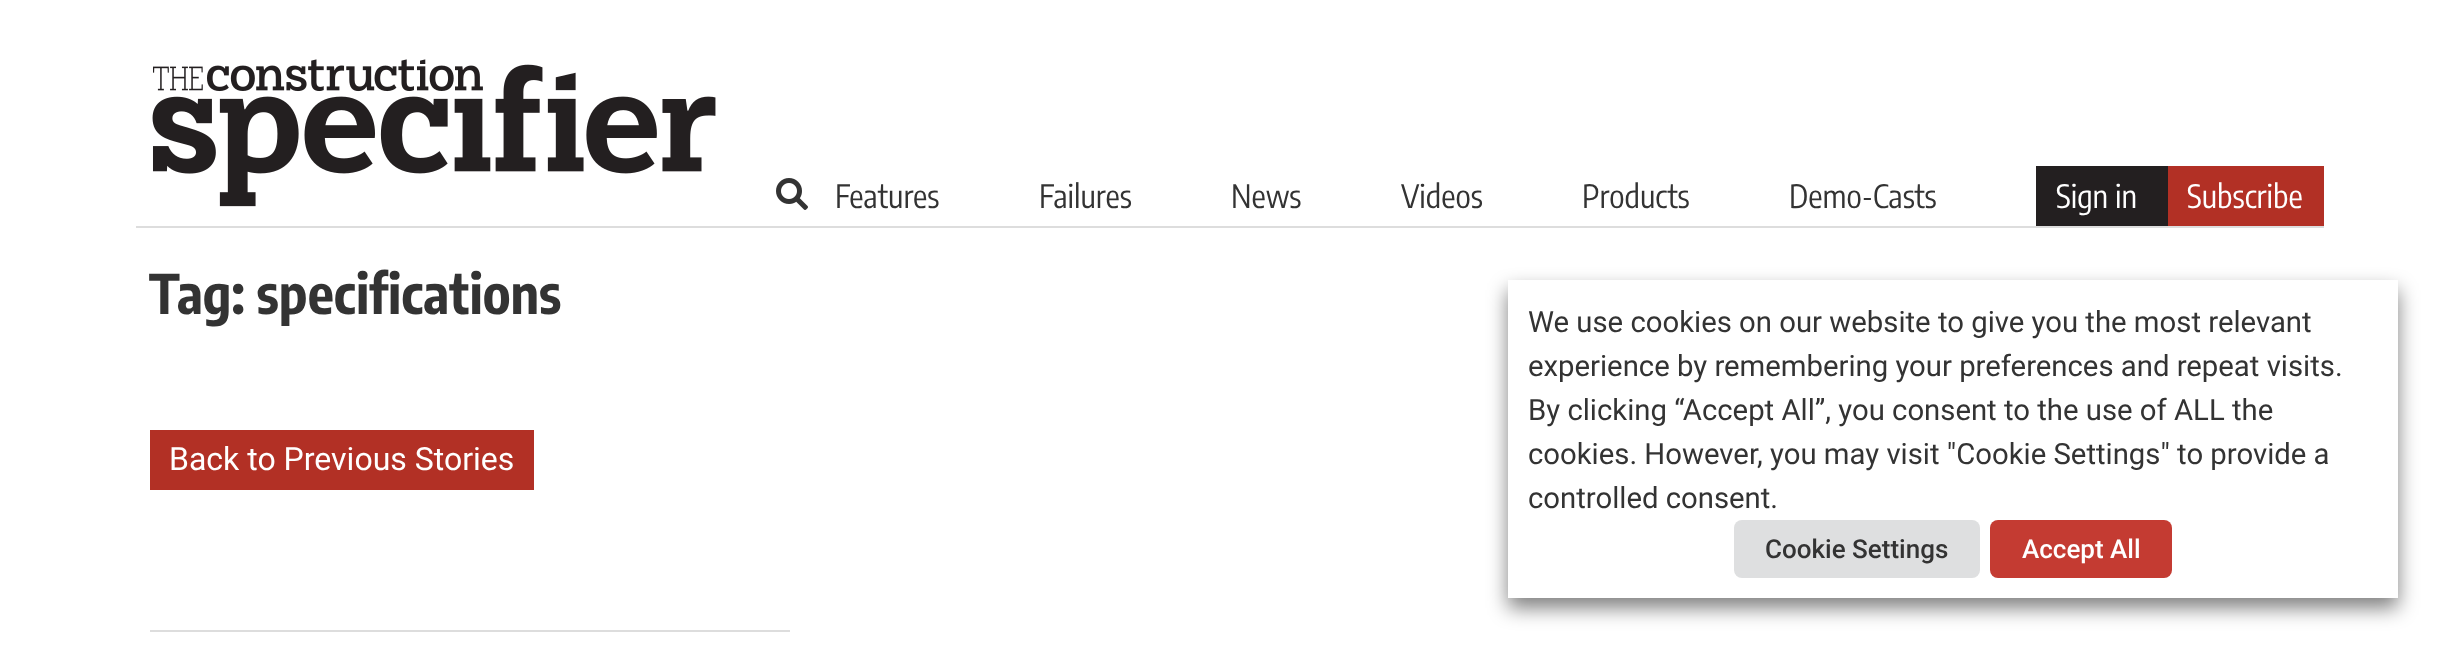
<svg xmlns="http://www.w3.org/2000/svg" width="2457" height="658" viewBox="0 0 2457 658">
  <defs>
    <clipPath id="clip1"><path d="M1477 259H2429V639H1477ZM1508 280H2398V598H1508Z" clip-rule="evenodd"/></clipPath>
  </defs>
  <rect width="100%" height="100%" fill="#fff"/>
  <image x="152" y="59" width="564" height="148" href="img/1.png"/>
  <image x="776" y="178" width="32" height="32" href="img/2.png"/>
  <path d="M2036 166h132v60H2036z" fill="#231f20"/>
  <path d="M2168 166h156v60H2168z" fill="#b23025"/>
  <path d="M136 226h2188v2H136z" fill="#ddd"/>
  <path d="M150 430h384v60H150z" fill="#b23025"/>
  <path d="M150 630h640v2H150z" fill="#ddd"/>
  <g clip-path="url(#clip1)">
    <path d="M1508 290h890v318H1508z" fill="#00000080" filter="blur(10px)"/>
  </g>
  <rect x="1734" y="520" width="246" height="58" rx="8" fill="#dedfe0"/>
  <rect x="1990" y="520" width="182" height="58" rx="8" fill="#c43b32"/>
  <g font-family="Encode Sans Condensed" font-size="32" fill="#333">
    <text x="835" y="208">Features</text>
    <text x="1039" y="208">Failures</text>
    <text x="1231" y="208">News</text>
    <text x="1401" y="208">Videos</text>
    <text x="1582" y="208">Products</text>
    <text x="1789" y="208">Demo-Casts</text>
  </g>
  <g font-family="Encode Sans Condensed" font-size="32" fill="#fff">
    <text x="2056" y="208">Sign in</text>
    <text x="2187" y="208">Subscribe</text>
  </g>
  <text x="149" y="314" font-family="Encode Sans Condensed" font-size="54.5" font-weight="bold" fill="#333">Tag: specifications</text>
  <text x="169" y="470" font-family="Roboto" font-size="32" fill="#fff">Back to Previous Stories</text>
  <g font-family="Roboto" font-size="29.3" fill="#333">
    <text x="1528" y="332">We use cookies on our website to give you the most relevant</text>
    <text x="1528" y="376">experience by remembering your preferences and repeat visits.</text>
    <text x="1528" y="420">By clicking “Accept All”, you consent to the use of ALL the</text>
    <text x="1528" y="464">cookies. However, you may visit "Cookie Settings" to provide a</text>
    <text x="1528" y="508">controlled consent.</text>
  </g>
  <text x="1765" y="558" font-family="Roboto" font-size="26" font-weight="500" fill="#333">Cookie Settings</text>
  <text x="2022" y="558" font-family="Roboto" font-size="26" font-weight="500" fill="#fff">Accept All</text>
</svg>
